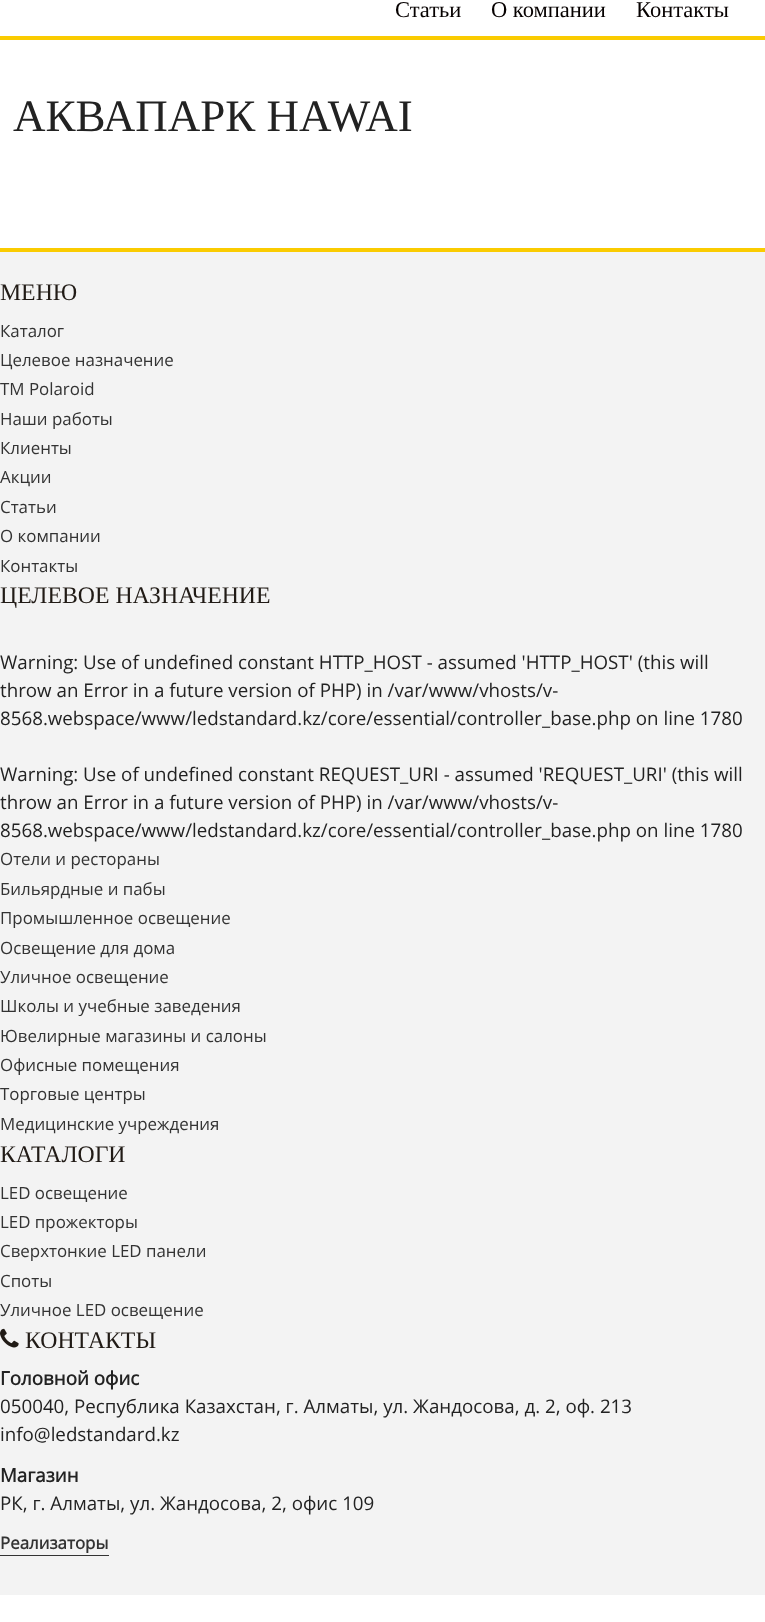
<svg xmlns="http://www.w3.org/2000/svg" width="765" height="1622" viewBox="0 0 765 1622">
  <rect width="100%" height="100%" fill="#fff"/>
  <path d="M0 36h765v4H0z" fill="#facb00"/>
  <path d="M0 252h765v1343H0z" fill="#f3f3f3"/>
  <path d="M0 248h765v4H0z" fill="#facb00"/>
  <image x="0" y="1328" width="19" height="20" href="img/1.png"/>
  <path d="M0 1555h109v1H0z" fill="#333"/>
  <g font-family="Liberation Serif" font-size="22.5" fill="#060100">
    <text x="395" y="17">Статьи</text>
    <text x="491" y="17">О компании</text>
    <text x="636" y="17">Контакты</text>
  </g>
  <text x="13" y="131" font-family="Liberation Serif" font-size="45" fill="#222">АКВАПАРК HAWAI</text>
  <text x="0" y="300" font-family="Liberation Serif" font-size="23.75" fill="#211b16">МЕНЮ</text>
  <g font-family="Open Sans" font-size="16.9" fill="#333">
    <text x="0" y="337">Каталог</text>
    <text x="0" y="366">Целевое назначение</text>
    <text x="0" y="395">TM Polaroid</text>
    <text x="0" y="425">Наши работы</text>
    <text x="0" y="454">Клиенты</text>
    <text x="0" y="483">Акции</text>
    <text x="0" y="513">Статьи</text>
    <text x="0" y="542">О компании</text>
    <text x="0" y="572">Контакты</text>
  </g>
  <text x="0" y="603" font-family="Liberation Serif" font-size="23.75" fill="#211b16">ЦЕЛЕВОЕ НАЗНАЧЕНИЕ</text>
  <g font-family="Open Sans" font-size="18.75" fill="#222">
    <text x="0" y="669">Warning: Use of undefined constant HTTP_HOST - assumed 'HTTP_HOST' (this will</text>
    <text x="0" y="697">throw an Error in a future version of PHP) in /var/www/vhosts/v-</text>
    <text x="0" y="725">8568.webspace/www/ledstandard.kz/core/essential/controller_base.php on line 1780</text>
    <text x="0" y="781">Warning: Use of undefined constant REQUEST_URI - assumed 'REQUEST_URI' (this will</text>
    <text x="0" y="809">throw an Error in a future version of PHP) in /var/www/vhosts/v-</text>
    <text x="0" y="837">8568.webspace/www/ledstandard.kz/core/essential/controller_base.php on line 1780</text>
  </g>
  <g font-family="Open Sans" font-size="16.9" fill="#333">
    <text x="0" y="865">Отели и рестораны</text>
    <text x="0" y="895">Бильярдные и пабы</text>
    <text x="0" y="924">Промышленное освещение</text>
    <text x="0" y="954">Освещение для дома</text>
    <text x="0" y="983">Уличное освещение</text>
    <text x="0" y="1012">Школы и учебные заведения</text>
    <text x="0" y="1042">Ювелирные магазины и салоны</text>
    <text x="0" y="1071">Офисные помещения</text>
    <text x="0" y="1100">Торговые центры</text>
    <text x="0" y="1130">Медицинские учреждения</text>
  </g>
  <text x="0" y="1162" font-family="Liberation Serif" font-size="23.75" fill="#211b16">КАТАЛОГИ</text>
  <g font-family="Open Sans" font-size="16.9" fill="#333">
    <text x="0" y="1199">LED освещение</text>
    <text x="0" y="1228">LED прожекторы</text>
    <text x="0" y="1257">Сверхтонкие LED панели</text>
    <text x="0" y="1287">Споты</text>
    <text x="0" y="1316">Уличное LED освещение</text>
  </g>
  <text x="25" y="1348" font-family="Liberation Serif" font-size="23.75" fill="#211b16">КОНТАКТЫ</text>
  <text x="0" y="1385" font-family="Open Sans" font-size="18.75" font-weight="bold" fill="#222">Головной офис</text>
  <g font-family="Open Sans" font-size="18.75" fill="#222">
    <text x="0" y="1413">050040, Республика Казахстан, г. Алматы, ул. Жандосова, д. 2, оф. 213</text>
    <text x="0" y="1441">info@ledstandard.kz</text>
  </g>
  <text x="0" y="1482" font-family="Open Sans" font-size="18.75" font-weight="bold" fill="#222">Магазин</text>
  <text x="0" y="1510" font-family="Open Sans" font-size="18.75" fill="#222">РК, г. Алматы, ул. Жандосова, 2, офис 109</text>
  <text x="0" y="1549" font-family="Open Sans" font-size="16.9" font-weight="bold" fill="#333">Реализаторы</text>
</svg>
